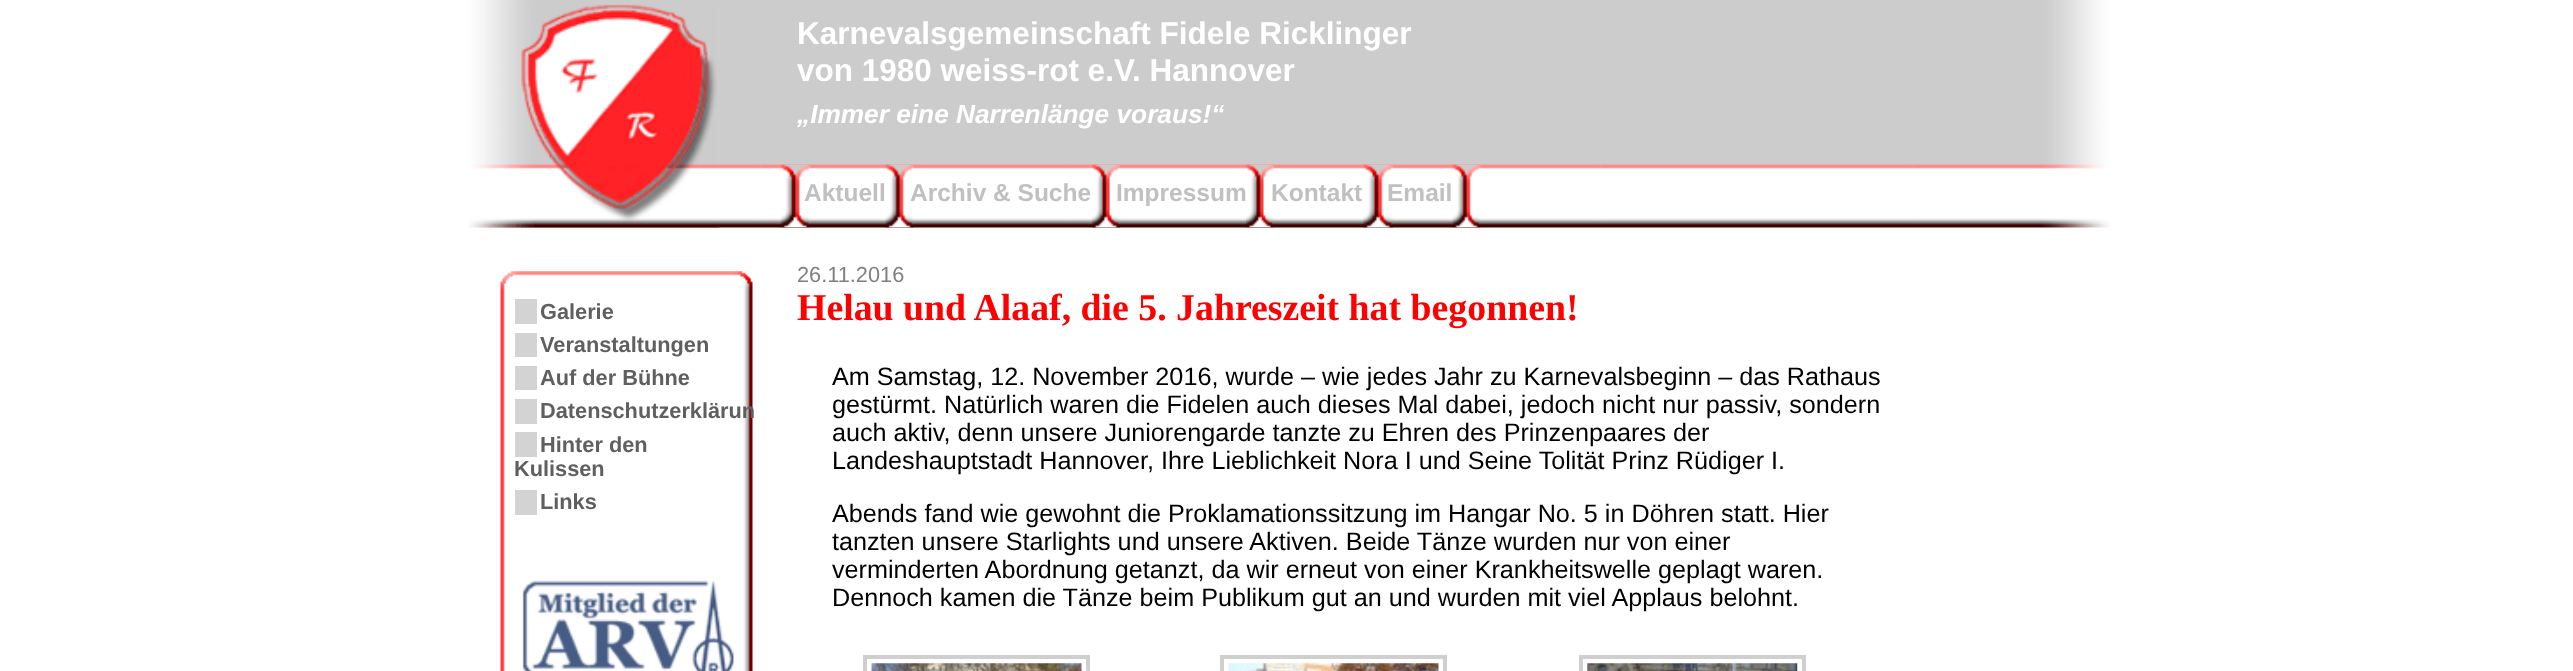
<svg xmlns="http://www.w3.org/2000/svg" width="2573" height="671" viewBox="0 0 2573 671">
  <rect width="100%" height="100%" fill="#fff"/>
  <image x="468" y="0" width="1642" height="228" href="img/1.png"/>
  <image x="479" y="4" width="241" height="224" href="img/2.png"/>
  <image x="780" y="164" width="31" height="64" href="img/3.png"/>
  <image x="885" y="164" width="29" height="64" href="img/4.png"/>
  <image x="1092" y="164" width="28" height="64" href="img/5.png"/>
  <image x="1246" y="164" width="28" height="64" href="img/6.png"/>
  <image x="1363" y="164" width="30" height="64" href="img/7.png"/>
  <image x="1452" y="164" width="29" height="64" href="img/8.png"/>
  <image x="500" y="271" width="253" height="400" href="img/9.png"/>
  <path d="M515 299h22v25H515z" fill="#d3d3d3"/>
  <path d="M515 333h22v24H515z" fill="#d3d3d3"/>
  <path d="M515 366h22v24H515z" fill="#d3d3d3"/>
  <path d="M515 399h22v25H515z" fill="#d3d3d3"/>
  <path d="M515 432h22v25H515z" fill="#d3d3d3"/>
  <path d="M515 490h22v25H515z" fill="#d3d3d3"/>
  <image x="522" y="580" width="212" height="91" href="img/10.png"/>
  <path d="M865 657h223v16H865z" fill="none" stroke="#cfcfcf" stroke-width="4"/>
  <image x="871" y="663" width="211" height="8" href="img/11.png"/>
  <path d="M1222 657h223v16H1222z" fill="none" stroke="#cfcfcf" stroke-width="4"/>
  <image x="1228" y="663" width="211" height="8" href="img/12.png"/>
  <path d="M1581 657h223v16H1581z" fill="none" stroke="#cfcfcf" stroke-width="4"/>
  <image x="1587" y="663" width="211" height="8" href="img/13.png"/>
  <g font-family="Liberation Sans" font-size="31.5" font-weight="bold" fill="#fff">
    <text x="797" y="44">Karnevalsgemeinschaft Fidele Ricklinger</text>
    <text x="797" y="81">von 1980 weiss-rot e.V. Hannover</text>
  </g>
  <text x="797" y="123" font-family="Liberation Sans" font-size="26.25" font-weight="bold" font-style="italic" fill="#fff">„Immer eine Narrenlänge voraus!“</text>
  <g font-family="Liberation Sans" font-size="24.5" font-weight="bold" fill="#c0c0c0">
    <text x="804" y="201">Aktuell</text>
    <text x="910" y="201">Archiv &amp; Suche</text>
    <text x="1116" y="201">Impressum</text>
    <text x="1271" y="201">Kontakt</text>
    <text x="1387" y="201">Email</text>
  </g>
  <g font-family="Liberation Sans" font-size="21.75" font-weight="bold" fill="#5f5f5f">
    <text x="540" y="319">Galerie</text>
    <text x="540" y="352">Veranstaltungen</text>
    <text x="540" y="385">Auf der Bühne</text>
    <text x="540" y="418">Datenschutzerklärun</text>
    <text x="540" y="452">Hinter den</text>
    <text x="514" y="476">Kulissen</text>
    <text x="540" y="509">Links</text>
  </g>
  <text x="797" y="282" font-family="Liberation Sans" font-size="21.75" fill="#808080">26.11.2016</text>
  <text x="797" y="320" font-family="Liberation Serif" font-size="37.8" font-weight="bold" fill="#f00">Helau und Alaaf, die 5. Jahreszeit hat begonnen!</text>
  <g font-family="Liberation Sans" font-size="25.2" fill="#000">
    <text x="832" y="385">Am Samstag, 12. November 2016, wurde – wie jedes Jahr zu Karnevalsbeginn – das Rathaus</text>
    <text x="832" y="413">gestürmt. Natürlich waren die Fidelen auch dieses Mal dabei, jedoch nicht nur passiv, sondern</text>
    <text x="832" y="441">auch aktiv, denn unsere Juniorengarde tanzte zu Ehren des Prinzenpaares der</text>
    <text x="832" y="469">Landeshauptstadt Hannover, Ihre Lieblichkeit Nora I und Seine Tolität Prinz Rüdiger I.</text>
    <text x="832" y="522">Abends fand wie gewohnt die Proklamationssitzung im Hangar No. 5 in Döhren statt. Hier</text>
    <text x="832" y="550">tanzten unsere Starlights und unsere Aktiven. Beide Tänze wurden nur von einer</text>
    <text x="832" y="578">verminderten Abordnung getanzt, da wir erneut von einer Krankheitswelle geplagt waren.</text>
    <text x="832" y="606">Dennoch kamen die Tänze beim Publikum gut an und wurden mit viel Applaus belohnt.</text>
  </g>
</svg>
